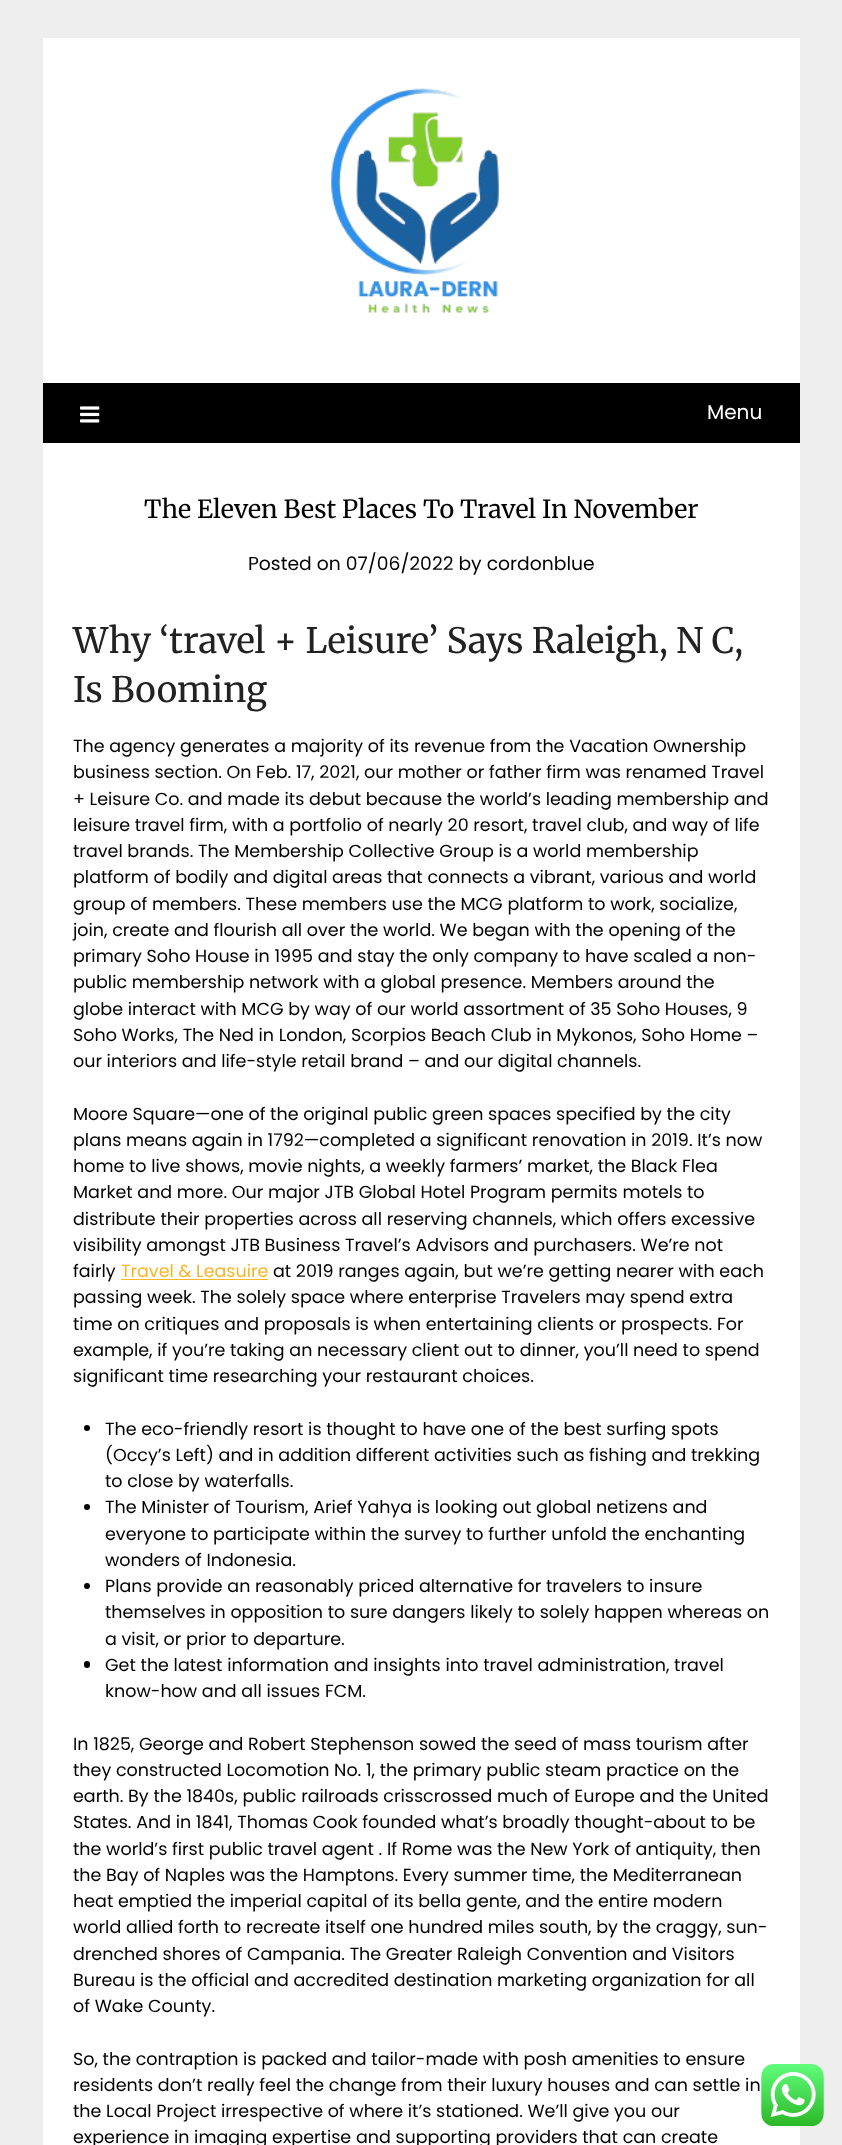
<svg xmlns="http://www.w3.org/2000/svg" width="842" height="2145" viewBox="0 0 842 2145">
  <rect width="100%" height="100%" fill="#eee"/>
  <path d="M43 38h757v345H43z" fill="#fff"/>
  <image x="331" y="88" width="168" height="226" href="img/1.png"/>
  <path d="M43 383h757v60H43z" fill="#000"/>
  <image x="80" y="406" width="20" height="17" href="img/2.png"/>
  <path d="M43 443h757v1702H43z" fill="#fff"/>
  <path d="M121 1279h147v1H121z" fill="#fab526"/>
  <circle cx="87" cy="1428" r="3" fill="#000"/>
  <circle cx="87" cy="1507" r="3" fill="#000"/>
  <circle cx="87" cy="1586" r="3" fill="#000"/>
  <rect x="84" y="1661" width="6" height="7" rx="3" fill="#000"/>
  <image x="761" y="2064" width="63" height="62" href="img/3.png"/>
  <text x="707" y="419" font-family="Poppins" font-size="20" fill="#fff">Menu</text>
  <text x="144" y="518" font-family="Merriweather" font-size="25" fill="#000">The Eleven Best Places To Travel In November</text>
  <text x="248" y="570" font-family="Poppins" font-size="18.75" fill="#000">Posted on 07/06/2022 by cordonblue</text>
  <g font-family="Merriweather" font-size="35" fill="#222">
    <text x="73" y="653">Why ‘travel + Leisure’ Says Raleigh, N C,</text>
    <text x="73" y="702">Is Booming</text>
  </g>
  <g font-family="Poppins" font-size="17.5" fill="#000">
    <text x="73" y="752">The agency generates a majority of its revenue from the Vacation Ownership</text>
    <text x="73" y="778">business section. On Feb. 17, 2021, our mother or father firm was renamed Travel</text>
    <text x="73" y="805">+ Leisure Co. and made its debut because the world’s leading membership and</text>
    <text x="73" y="831">leisure travel firm, with a portfolio of nearly 20 resort, travel club, and way of life</text>
    <text x="73" y="857">travel brands. The Membership Collective Group is a world membership</text>
    <text x="73" y="883">platform of bodily and digital areas that connects a vibrant, various and world</text>
    <text x="73" y="910">group of members. These members use the MCG platform to work, socialize,</text>
    <text x="73" y="936">join, create and flourish all over the world. We began with the opening of the</text>
    <text x="73" y="962">primary Soho House in 1995 and stay the only company to have scaled a non-</text>
    <text x="73" y="988">public membership network with a global presence. Members around the</text>
    <text x="73" y="1015">globe interact with MCG by way of our world assortment of 35 Soho Houses, 9</text>
    <text x="73" y="1041">Soho Works, The Ned in London, Scorpios Beach Club in Mykonos, Soho Home –</text>
    <text x="73" y="1067">our interiors and life-style retail brand – and our digital channels.</text>
    <text x="73" y="1120">Moore Square—one of the original public green spaces specified by the city</text>
    <text x="73" y="1146">plans means again in 1792—completed a significant renovation in 2019. It’s now</text>
    <text x="73" y="1172">home to live shows, movie nights, a weekly farmers’ market, the Black Flea</text>
    <text x="73" y="1198">Market and more. Our major JTB Global Hotel Program permits motels to</text>
    <text x="73" y="1225">distribute their properties across all reserving channels, which offers excessive</text>
    <text x="73" y="1251">visibility amongst JTB Business Travel’s Advisors and purchasers. We’re not</text>
    <text x="73" y="1277">fairly</text>
  </g>
  <text x="121" y="1277" font-family="Poppins" font-size="17.5" fill="#fab526">Travel &amp; Leasuire</text>
  <g font-family="Poppins" font-size="17.5" fill="#000">
    <text x="273" y="1277">at 2019 ranges again, but we’re getting nearer with each</text>
    <text x="73" y="1303">passing week. The solely space where enterprise Travelers may spend extra</text>
    <text x="73" y="1330">time on critiques and proposals is when entertaining clients or prospects. For</text>
    <text x="73" y="1356">example, if you’re taking an necessary client out to dinner, you’ll need to spend</text>
    <text x="73" y="1382">significant time researching your restaurant choices.</text>
    <text x="105" y="1435">The eco-friendly resort is thought to have one of the best surfing spots</text>
    <text x="105" y="1461">(Occy’s Left) and in addition different activities such as fishing and trekking</text>
    <text x="105" y="1487">to close by waterfalls.</text>
    <text x="105" y="1513">The Minister of Tourism, Arief Yahya is looking out global netizens and</text>
    <text x="105" y="1540">everyone to participate within the survey to further unfold the enchanting</text>
    <text x="105" y="1566">wonders of Indonesia.</text>
    <text x="105" y="1592">Plans provide an reasonably priced alternative for travelers to insure</text>
    <text x="105" y="1618">themselves in opposition to sure dangers likely to solely happen whereas on</text>
    <text x="105" y="1645">a visit, or prior to departure.</text>
    <text x="105" y="1671">Get the latest information and insights into travel administration, travel</text>
    <text x="105" y="1697">know-how and all issues FCM.</text>
    <text x="73" y="1750">In 1825, George and Robert Stephenson sowed the seed of mass tourism after</text>
    <text x="73" y="1776">they constructed Locomotion No. 1, the primary public steam practice on the</text>
    <text x="73" y="1802">earth. By the 1840s, public railroads crisscrossed much of Europe and the United</text>
    <text x="73" y="1828">States. And in 1841, Thomas Cook founded what’s broadly thought-about to be</text>
    <text x="73" y="1855">the world’s first public travel agent . If Rome was the New York of antiquity, then</text>
    <text x="73" y="1881">the Bay of Naples was the Hamptons. Every summer time, the Mediterranean</text>
    <text x="73" y="1907">heat emptied the imperial capital of its bella gente, and the entire modern</text>
    <text x="73" y="1933">world allied forth to recreate itself one hundred miles south, by the craggy, sun-</text>
    <text x="73" y="1960">drenched shores of Campania. The Greater Raleigh Convention and Visitors</text>
    <text x="73" y="1986">Bureau is the official and accredited destination marketing organization for all</text>
    <text x="73" y="2012">of Wake County.</text>
    <text x="73" y="2065">So, the contraption is packed and tailor-made with posh amenities to ensure</text>
    <text x="73" y="2091">residents don’t really feel the change from their luxury houses and can settle in</text>
    <text x="73" y="2117">the Local Project irrespective of where it’s stationed. We’ll give you our</text>
    <text x="73" y="2143">experience in imaging expertise and supporting providers that can create</text>
  </g>
</svg>
